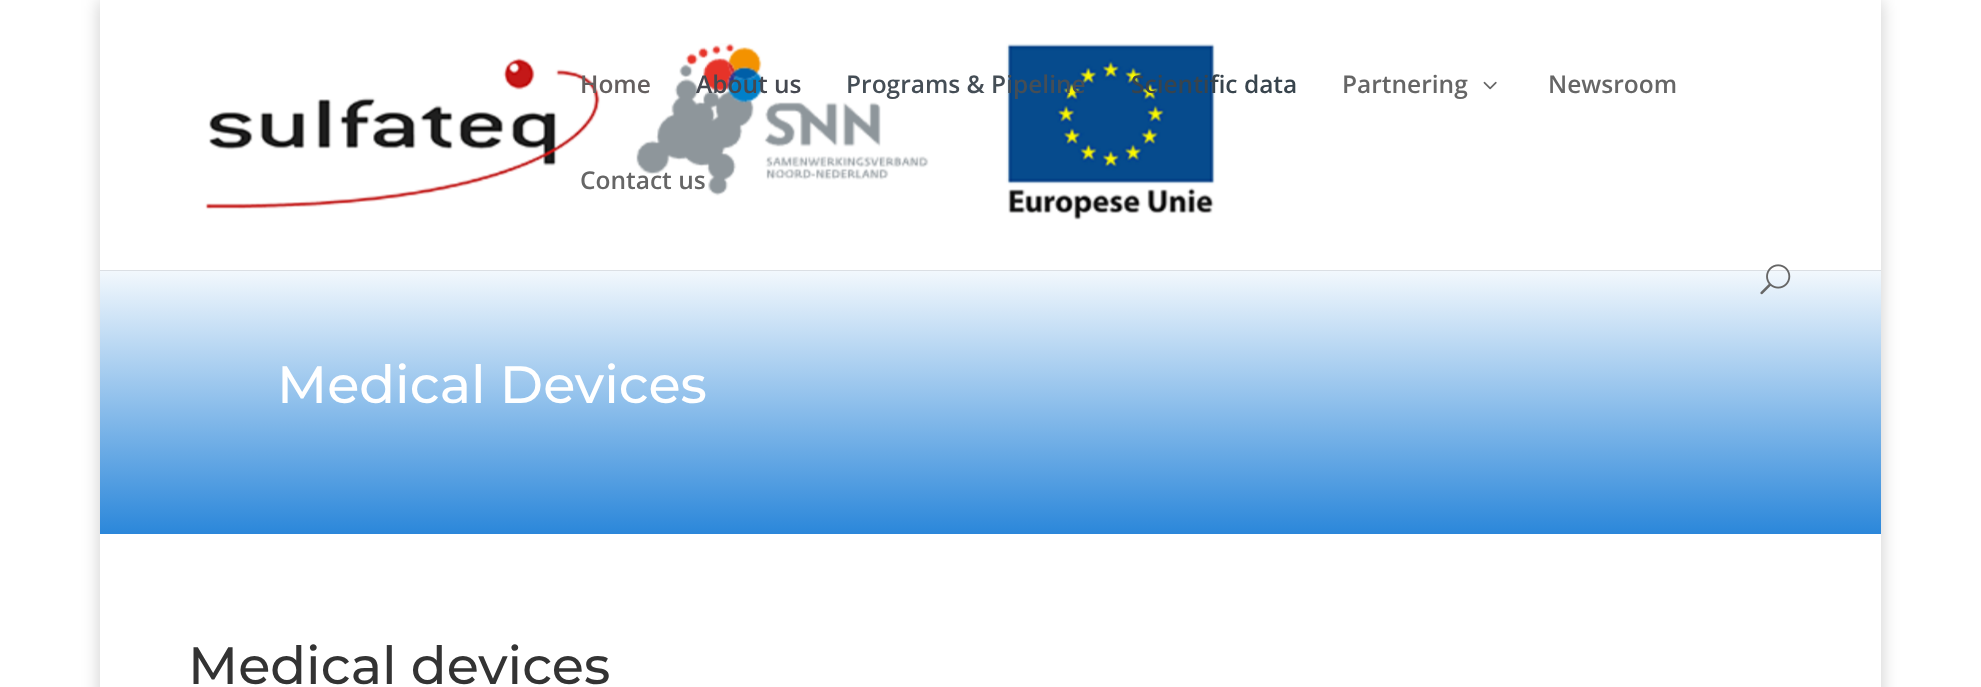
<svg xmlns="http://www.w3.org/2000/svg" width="1981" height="687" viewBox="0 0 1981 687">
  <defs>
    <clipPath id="clip1"><path d="M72 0H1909V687H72ZM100 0H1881V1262H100Z" clip-rule="evenodd"/></clipPath>
    <linearGradient id="g1" gradientUnits="userSpaceOnUse" x1="991" y1="254" x2="991" y2="534"><stop offset="0" stop-color="#fff"/><stop offset="1" stop-color="#2b87da"/></linearGradient>
  </defs>
  <rect width="100%" height="100%" fill="#fff"/>
  <g clip-path="url(#clip1)">
    <path d="M100 0h1781v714H100z" fill="#00000033" filter="blur(9px)"/>
  </g>
  <path d="M100 270h1781v1H100z" fill="#dbdfe4"/>
  <image x="205" y="43" width="1010" height="177" href="img/1.png"/>
  <image x="1483" y="81" width="14" height="9" href="img/2.png"/>
  <path d="M100 271h1781v263H100z" fill="url(#g1)"/>
  <image x="1760" y="264" width="31" height="31" href="img/3.png"/>
  <text x="580" y="93" font-family="Open Sans" font-size="24.5" font-weight="600" fill="#645f5f">Home</text>
  <text x="696" y="93" font-family="Open Sans" font-size="24.5" font-weight="600" fill="#454850">About us</text>
  <text x="846" y="93" font-family="Open Sans" font-size="24.5" font-weight="600" fill="#454e56">Programs &amp; Pipeline</text>
  <text x="1131" y="93" font-family="Open Sans" font-size="24.5" font-weight="600" fill="#38444d">Scientific data</text>
  <g font-family="Open Sans" font-size="24.5" font-weight="600" fill="#666">
    <text x="1342" y="93">Partnering</text>
    <text x="1548" y="93">Newsroom</text>
    <text x="580" y="189">Contact us</text>
  </g>
  <text x="277" y="403" font-family="Montserrat" font-size="52.5" font-weight="100" fill="#fff">Medical Devices</text>
  <text x="188" y="684" font-family="Montserrat" font-size="52.5" font-weight="100" fill="#333">Medical devices</text>
</svg>
